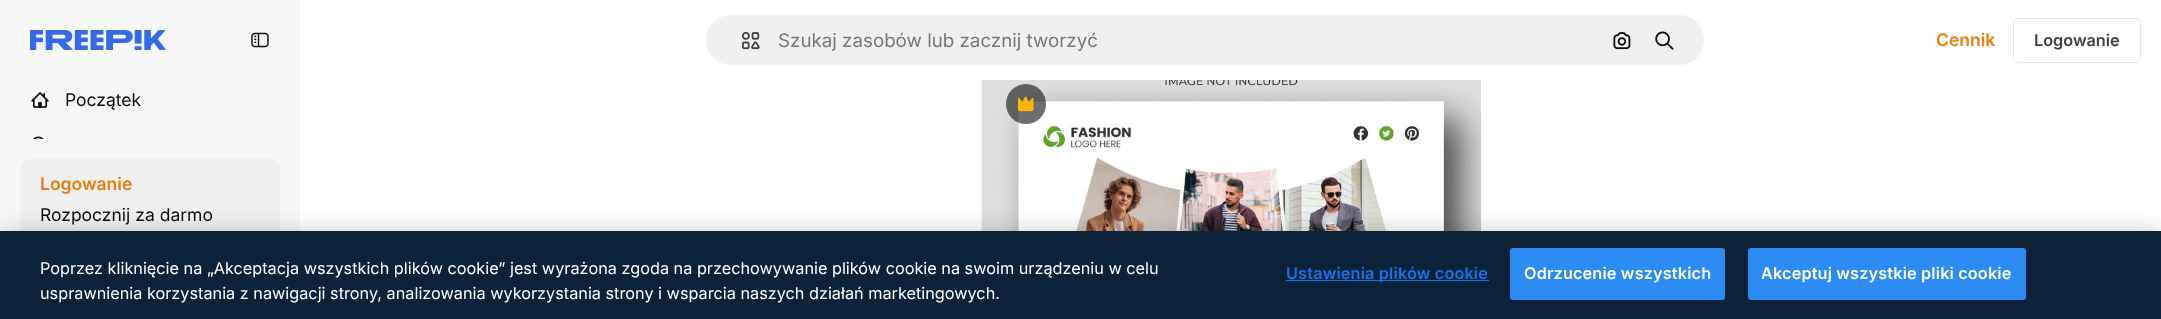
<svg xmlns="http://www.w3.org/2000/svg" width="2161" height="319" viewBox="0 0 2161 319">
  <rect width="100%" height="100%" fill="#fff"/>
  <rect x="705.5" y="14.5" width="999" height="51" rx="25.5" fill="#f0f0f0" stroke="#fff"/>
  <image x="741" y="31" width="19" height="19" href="img/1.png"/>
  <image x="1613" y="32" width="18" height="18" href="img/2.png"/>
  <image x="1655" y="31" width="19" height="19" href="img/3.png"/>
  <rect x="2013.5" y="18.5" width="127" height="44" rx="4.5" fill="none" stroke="#e7e7e7"/>
  <image x="981" y="80" width="500" height="151" href="img/4.png"/>
  <circle cx="1026" cy="104" r="20" fill="#0d0d0d99"/>
  <image x="1018" y="96" width="16" height="16" href="img/5.png"/>
  <path d="M0 0h300v231H0z" fill="#f7f7f7"/>
  <image x="30" y="30" width="136" height="20" href="img/6.png"/>
  <image x="251" y="32" width="18" height="16" href="img/7.png"/>
  <image x="31" y="92" width="18" height="16" href="img/8.png"/>
  <image x="33" y="136" width="11" height="3" href="img/9.png"/>
  <rect x="20" y="159" width="260" height="81" rx="10" fill="#f0f0f0"/>
  <path d="M0 231h2161v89H0z" fill="#00000033" filter="blur(11px)"/>
  <path d="M0 231h2161v88H0z" fill="#0b2239"/>
  <path d="M1286 280h203v1H1286z" fill="#1273eb"/>
  <rect x="1510.5" y="248.5" width="214" height="51" rx="2" fill="#2c8cf4" stroke="#2c8cf4"/>
  <rect x="1748.5" y="248.5" width="277" height="51" rx="2" fill="#2c8cf4" stroke="#2c8cf4"/>
  <text x="778" y="47" font-family="Inter" font-size="18.75" fill="#777">Szukaj zasobów lub zacznij tworzyć</text>
  <text x="1936" y="46" font-family="Inter" font-size="17.5" font-weight="600" fill="#ea7e11">Cennik</text>
  <text x="2034" y="46" font-family="Inter" font-size="16.25" font-weight="600" fill="#424242">Logowanie</text>
  <text x="65" y="106" font-family="Inter" font-size="17.5" fill="#0d0d0d">Początek</text>
  <text x="40" y="190" font-family="Inter" font-size="17.5" font-weight="600" fill="#ea7e11">Logowanie</text>
  <text x="40" y="221" font-family="Inter" font-size="17.5" fill="#0d0d0d">Rozpocznij za darmo</text>
  <g font-family="Inter" font-size="16.25" fill="#fff">
    <text x="40" y="274">Poprzez kliknięcie na „Akceptacja wszystkich plików cookie” jest wyrażona zgoda na przechowywanie plików cookie na swoim urządzeniu w celu</text>
    <text x="40" y="299">usprawnienia korzystania z nawigacji strony, analizowania wykorzystania strony i wsparcia naszych działań marketingowych.</text>
  </g>
  <text x="1286" y="279" font-family="Inter" font-size="16.25" font-weight="600" letter-spacing="0.15" fill="#1273eb">Ustawienia plików cookie</text>
  <g font-family="Inter" font-size="16.25" font-weight="600" letter-spacing="0.15" fill="#fff">
    <text x="1524" y="279">Odrzucenie wszystkich</text>
    <text x="1761" y="279">Akceptuj wszystkie pliki cookie</text>
  </g>
</svg>
